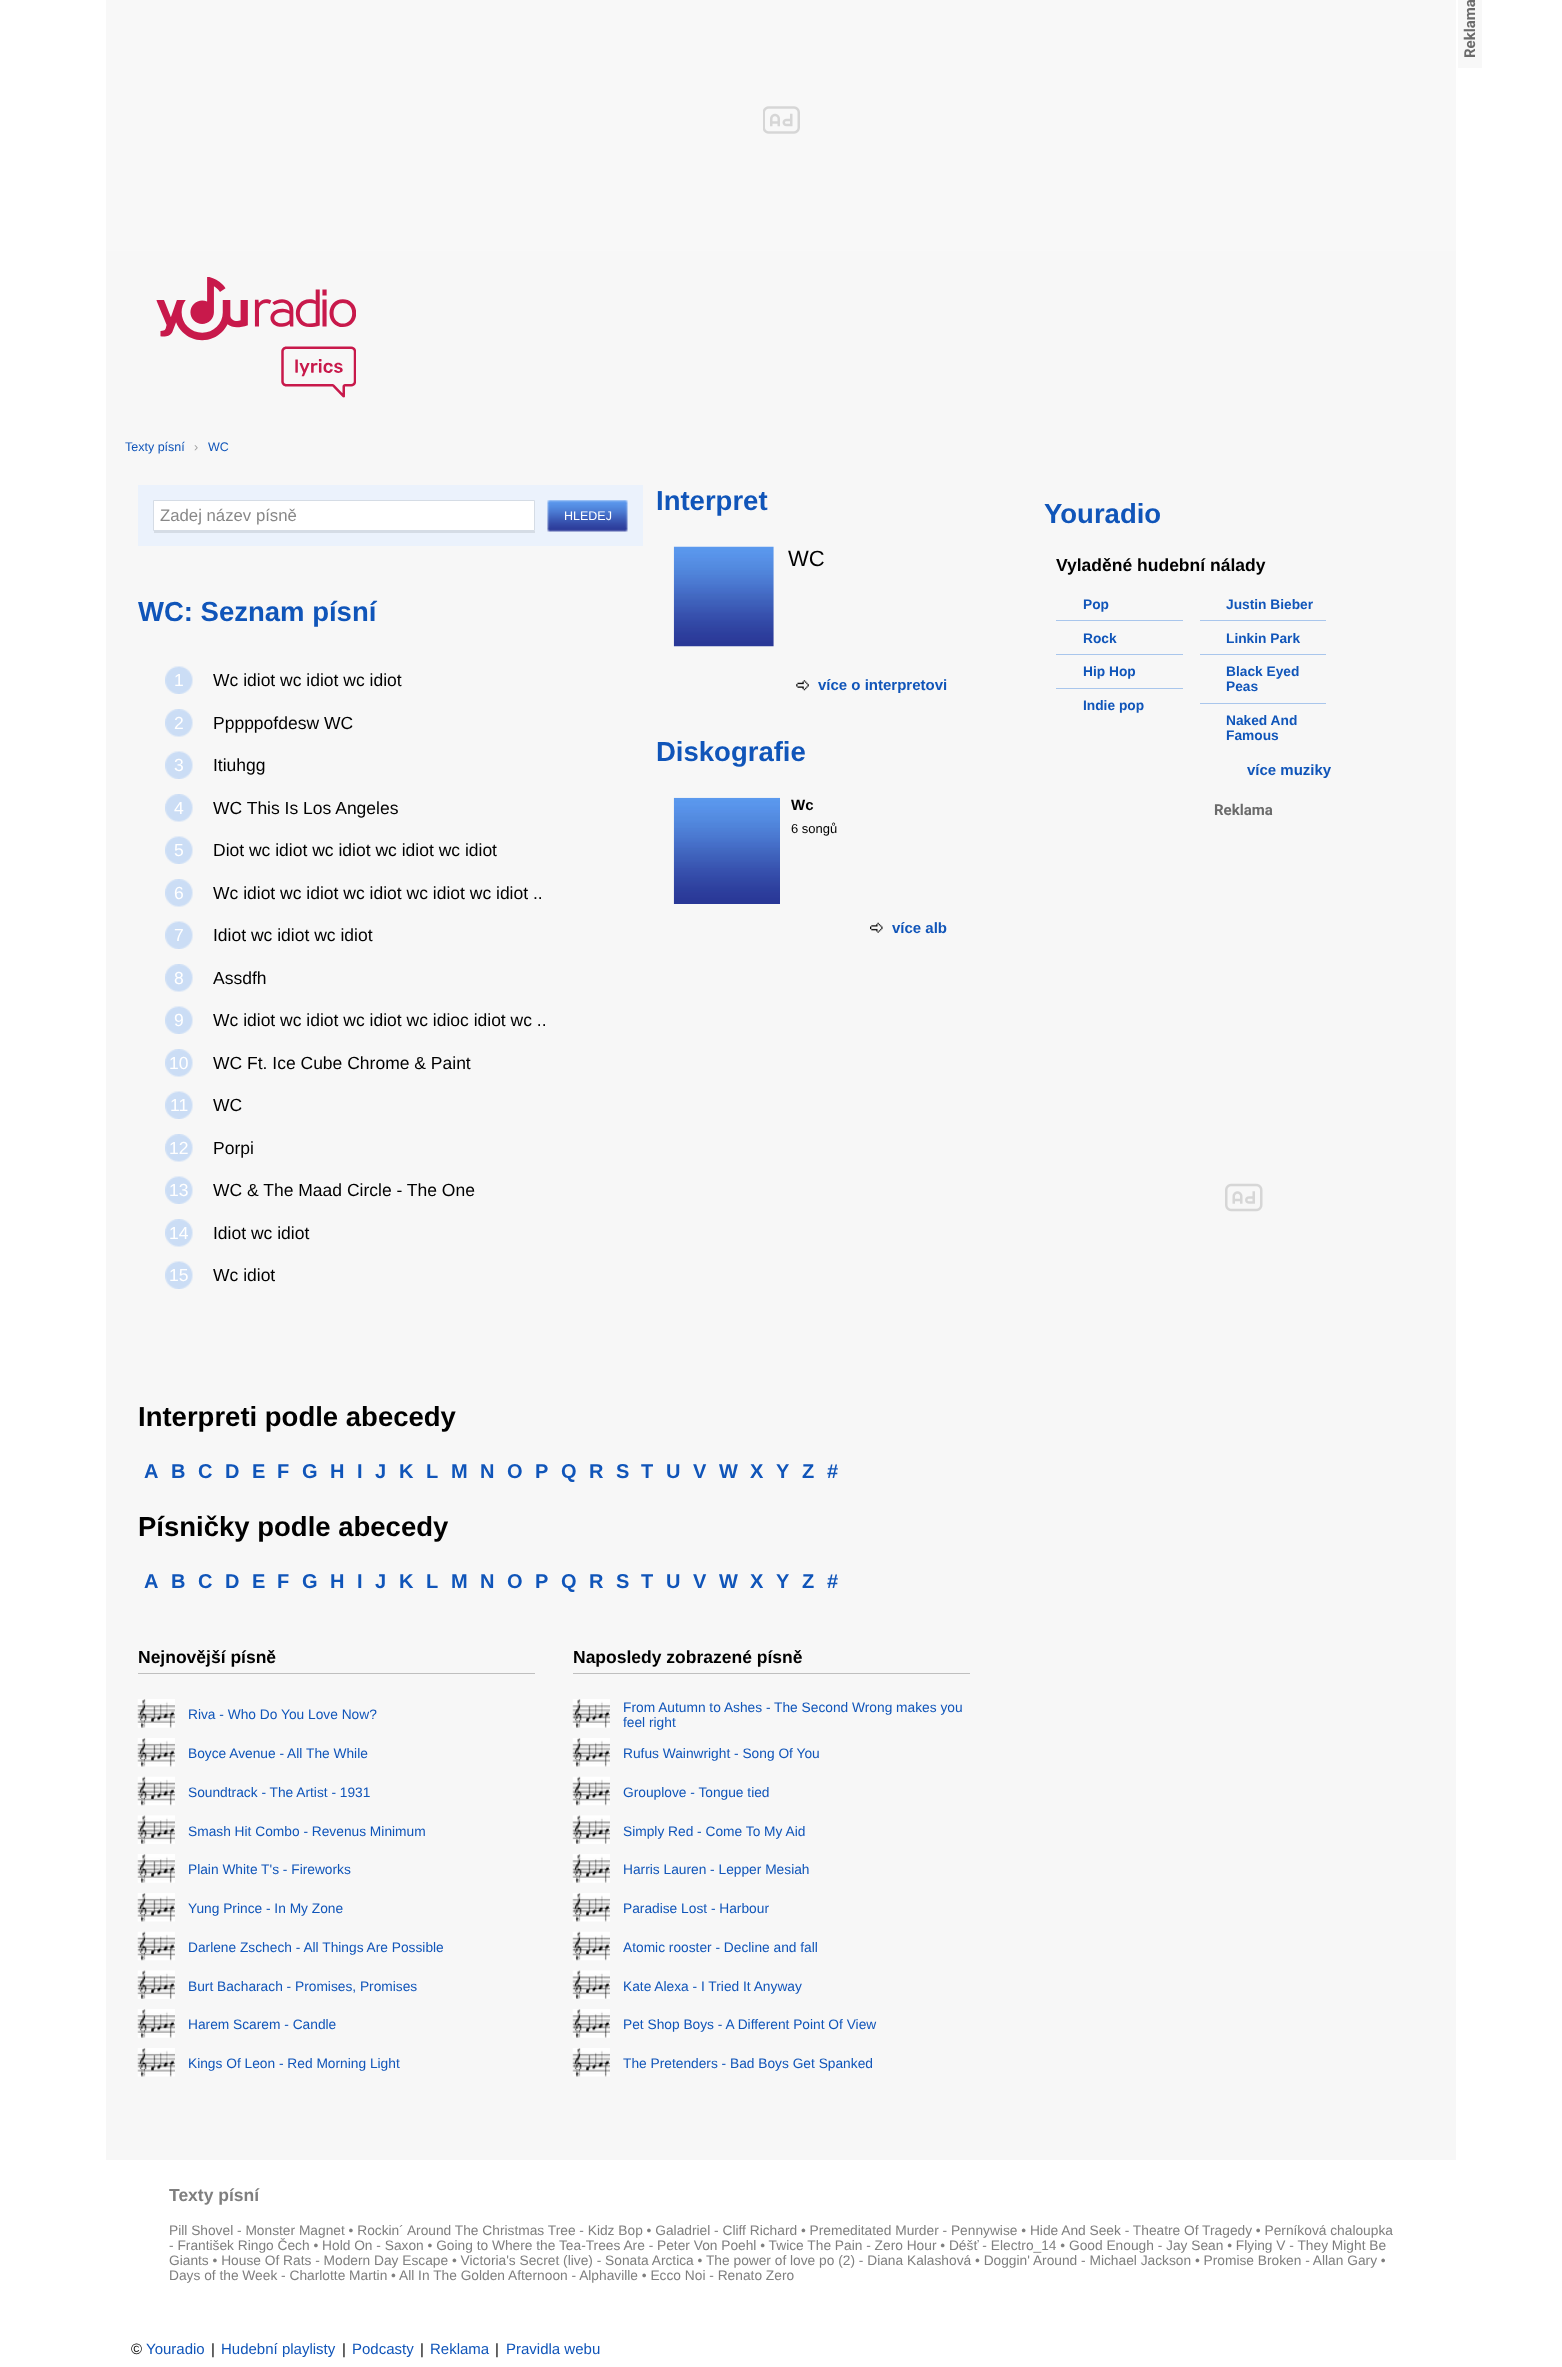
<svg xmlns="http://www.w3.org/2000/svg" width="1562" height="2367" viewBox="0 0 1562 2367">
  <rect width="100%" height="100%" fill="#fff"/>
  <path d="M106 0h1350v251H106z" fill="#f8f8f8"/>
  <image x="763" y="106" width="37" height="28" href="img/1.png"/>
  <path d="M1458 0h24v68H1458z" fill="#f8f8f8"/>
  <path d="M106 251h1350v1909H106z" fill="#f7f7f7"/>
  <image x="156" y="277" width="200" height="121" href="img/2.png"/>
  <path d="M138 485h505v61H138z" fill="#ebf2fc"/>
  <path d="M153.5 500.5h381v30H153.5z" fill="#fff" stroke="#d5dce5"/>
  <path d="M154 531h381v2H154z" fill="#d5dce5"/>
  <image x="547" y="500" width="81" height="32" href="img/3.png"/>
  <image x="165" y="666" width="28" height="28" href="img/4.png"/>
  <image x="165" y="709" width="28" height="28" href="img/5.png"/>
  <image x="165" y="751" width="28" height="28" href="img/4.png"/>
  <image x="165" y="794" width="28" height="28" href="img/5.png"/>
  <image x="165" y="836" width="28" height="28" href="img/4.png"/>
  <image x="165" y="879" width="28" height="28" href="img/5.png"/>
  <image x="165" y="921" width="28" height="28" href="img/4.png"/>
  <image x="165" y="964" width="28" height="28" href="img/5.png"/>
  <image x="165" y="1006" width="28" height="28" href="img/4.png"/>
  <image x="165" y="1049" width="28" height="28" href="img/5.png"/>
  <image x="165" y="1091" width="28" height="28" href="img/4.png"/>
  <image x="165" y="1134" width="28" height="28" href="img/5.png"/>
  <image x="165" y="1176" width="28" height="28" href="img/4.png"/>
  <image x="165" y="1219" width="28" height="28" href="img/5.png"/>
  <image x="165" y="1261" width="28" height="28" href="img/4.png"/>
  <image x="673" y="546" width="101" height="101" href="img/6.png"/>
  <image x="796" y="680" width="13" height="11" href="img/7.png"/>
  <image x="673" y="797" width="107" height="107" href="img/8.png"/>
  <image x="870" y="922" width="13" height="11" href="img/9.png"/>
  <path d="M138 1673h397v1H138z" fill="#bfbfbf"/>
  <image x="137" y="1699" width="38" height="29" href="img/10.png"/>
  <image x="137" y="1738" width="38" height="29" href="img/11.png"/>
  <image x="137" y="1776" width="38" height="30" href="img/12.png"/>
  <image x="137" y="1815" width="38" height="29" href="img/13.png"/>
  <image x="137" y="1854" width="38" height="29" href="img/10.png"/>
  <image x="137" y="1893" width="38" height="29" href="img/11.png"/>
  <image x="137" y="1931" width="38" height="30" href="img/12.png"/>
  <image x="137" y="1970" width="38" height="29" href="img/13.png"/>
  <image x="137" y="2009" width="38" height="29" href="img/10.png"/>
  <image x="137" y="2048" width="38" height="29" href="img/11.png"/>
  <path d="M573 1673h397v1H573z" fill="#bfbfbf"/>
  <image x="572" y="1699" width="38" height="29" href="img/14.png"/>
  <image x="572" y="1738" width="38" height="29" href="img/15.png"/>
  <image x="572" y="1776" width="38" height="30" href="img/16.png"/>
  <image x="572" y="1815" width="38" height="29" href="img/17.png"/>
  <image x="572" y="1854" width="38" height="29" href="img/14.png"/>
  <image x="572" y="1893" width="38" height="29" href="img/15.png"/>
  <image x="572" y="1931" width="38" height="30" href="img/16.png"/>
  <image x="572" y="1970" width="38" height="29" href="img/17.png"/>
  <image x="572" y="2009" width="38" height="29" href="img/14.png"/>
  <image x="572" y="2048" width="38" height="29" href="img/15.png"/>
  <path d="M1056 620h127v1H1056z" fill="#a9c6ec"/>
  <path d="M1056 654h127v1H1056z" fill="#a9c6ec"/>
  <path d="M1056 688h127v1H1056z" fill="#a9c6ec"/>
  <path d="M1200 620h126v1H1200z" fill="#a9c6ec"/>
  <path d="M1200 654h126v1H1200z" fill="#a9c6ec"/>
  <path d="M1200 703h126v1H1200z" fill="#a9c6ec"/>
  <image x="1225" y="1183" width="38" height="29" href="img/18.png"/>
  <text x="1475" y="58" transform="rotate(-90 1475 58)" font-family="Roboto" font-size="15" font-weight="bold" fill="#6b6b6b">Reklama</text>
  <text x="125" y="451" font-family="Liberation Sans" font-size="12.5" fill="#1055b9">Texty písní</text>
  <text x="194" y="451" font-family="Liberation Sans" font-size="12.5" fill="#a2a2a2">›</text>
  <text x="208" y="451" font-family="Liberation Sans" font-size="12.5" fill="#1055b9">WC</text>
  <text x="160" y="521" font-family="Liberation Sans" font-size="16.75" fill="#888">Zadej název písně</text>
  <text x="564" y="520" font-family="Liberation Sans" font-size="12.5" fill="#fff">HLEDEJ</text>
  <text x="138" y="621" font-family="Liberation Sans" font-size="27.5" font-weight="bold" fill="#1055b9">WC: Seznam písní</text>
  <text x="174" y="686" font-family="Liberation Sans" font-size="17.5" fill="#fff">1</text>
  <text x="213" y="686" font-family="Liberation Sans" font-size="17.5" fill="#000">Wc idiot wc idiot wc idiot</text>
  <text x="174" y="729" font-family="Liberation Sans" font-size="17.5" fill="#fff">2</text>
  <text x="213" y="729" font-family="Liberation Sans" font-size="17.5" fill="#000">Pppppofdesw WC</text>
  <text x="174" y="771" font-family="Liberation Sans" font-size="17.5" fill="#fff">3</text>
  <text x="213" y="771" font-family="Liberation Sans" font-size="17.5" fill="#000">Itiuhgg</text>
  <text x="174" y="814" font-family="Liberation Sans" font-size="17.5" fill="#fff">4</text>
  <text x="213" y="814" font-family="Liberation Sans" font-size="17.5" fill="#000">WC This Is Los Angeles</text>
  <text x="174" y="856" font-family="Liberation Sans" font-size="17.5" fill="#fff">5</text>
  <text x="213" y="856" font-family="Liberation Sans" font-size="17.5" fill="#000">Diot wc idiot wc idiot wc idiot wc idiot</text>
  <text x="174" y="899" font-family="Liberation Sans" font-size="17.5" fill="#fff">6</text>
  <text x="213" y="899" font-family="Liberation Sans" font-size="17.5" fill="#000">Wc idiot wc idiot wc idiot wc idiot wc idiot ..</text>
  <text x="174" y="941" font-family="Liberation Sans" font-size="17.5" fill="#fff">7</text>
  <text x="213" y="941" font-family="Liberation Sans" font-size="17.5" fill="#000">Idiot wc idiot wc idiot</text>
  <text x="174" y="984" font-family="Liberation Sans" font-size="17.5" fill="#fff">8</text>
  <text x="213" y="984" font-family="Liberation Sans" font-size="17.5" fill="#000">Assdfh</text>
  <text x="174" y="1026" font-family="Liberation Sans" font-size="17.5" fill="#fff">9</text>
  <text x="213" y="1026" font-family="Liberation Sans" font-size="17.5" fill="#000">Wc idiot wc idiot wc idiot wc idioc idiot wc ..</text>
  <text x="169" y="1069" font-family="Liberation Sans" font-size="17.5" fill="#fff">10</text>
  <text x="213" y="1069" font-family="Liberation Sans" font-size="17.5" fill="#000">WC Ft. Ice Cube Chrome &amp; Paint</text>
  <text x="170" y="1111" font-family="Liberation Sans" font-size="17.5" fill="#fff">11</text>
  <text x="213" y="1111" font-family="Liberation Sans" font-size="17.5" fill="#000">WC</text>
  <text x="169" y="1154" font-family="Liberation Sans" font-size="17.5" fill="#fff">12</text>
  <text x="213" y="1154" font-family="Liberation Sans" font-size="17.5" fill="#000">Porpi</text>
  <text x="169" y="1196" font-family="Liberation Sans" font-size="17.5" fill="#fff">13</text>
  <text x="213" y="1196" font-family="Liberation Sans" font-size="17.5" fill="#000">WC &amp; The Maad Circle - The One</text>
  <text x="169" y="1239" font-family="Liberation Sans" font-size="17.5" fill="#fff">14</text>
  <text x="213" y="1239" font-family="Liberation Sans" font-size="17.5" fill="#000">Idiot wc idiot</text>
  <text x="169" y="1281" font-family="Liberation Sans" font-size="17.5" fill="#fff">15</text>
  <text x="213" y="1281" font-family="Liberation Sans" font-size="17.5" fill="#000">Wc idiot</text>
  <text x="656" y="510" font-family="Liberation Sans" font-size="27.5" font-weight="bold" fill="#1055b9">Interpret</text>
  <text x="788" y="566" font-family="Liberation Sans" font-size="22" fill="#000">WC</text>
  <text x="818" y="690" font-family="Liberation Sans" font-size="15" font-weight="bold" fill="#1055b9">více o interpretovi</text>
  <text x="656" y="761" font-family="Liberation Sans" font-size="27.5" font-weight="bold" fill="#1055b9">Diskografie</text>
  <text x="791" y="810" font-family="Liberation Sans" font-size="15" font-weight="bold" fill="#000">Wc</text>
  <text x="791" y="833" font-family="Liberation Sans" font-size="13" fill="#000">6 songů</text>
  <text x="892" y="933" font-family="Liberation Sans" font-size="15" font-weight="bold" fill="#1055b9">více alb</text>
  <text x="138" y="1426" font-family="Liberation Sans" font-size="27.5" font-weight="bold" fill="#000">Interpreti podle abecedy</text>
  <g font-family="Liberation Sans" font-size="20" font-weight="bold" fill="#1055b9">
    <text x="144" y="1478">A</text>
    <text x="171" y="1478">B</text>
    <text x="198" y="1478">C</text>
    <text x="225" y="1478">D</text>
    <text x="252" y="1478">E</text>
    <text x="277" y="1478">F</text>
    <text x="302" y="1478">G</text>
    <text x="330" y="1478">H</text>
    <text x="357" y="1478">I</text>
    <text x="375" y="1478">J</text>
    <text x="399" y="1478">K</text>
    <text x="426" y="1478">L</text>
    <text x="451" y="1478">M</text>
    <text x="480" y="1478">N</text>
    <text x="507" y="1478">O</text>
    <text x="535" y="1478">P</text>
    <text x="561" y="1478">Q</text>
    <text x="589" y="1478">R</text>
    <text x="616" y="1478">S</text>
    <text x="641" y="1478">T</text>
    <text x="666" y="1478">U</text>
    <text x="693" y="1478">V</text>
    <text x="719" y="1478">W</text>
    <text x="750" y="1478">X</text>
    <text x="776" y="1478">Y</text>
    <text x="802" y="1478">Z</text>
    <text x="827" y="1478">#</text>
  </g>
  <text x="138" y="1536" font-family="Liberation Sans" font-size="27.5" font-weight="bold" fill="#000">Písničky podle abecedy</text>
  <g font-family="Liberation Sans" font-size="20" font-weight="bold" fill="#1055b9">
    <text x="144" y="1588">A</text>
    <text x="171" y="1588">B</text>
    <text x="198" y="1588">C</text>
    <text x="225" y="1588">D</text>
    <text x="252" y="1588">E</text>
    <text x="277" y="1588">F</text>
    <text x="302" y="1588">G</text>
    <text x="330" y="1588">H</text>
    <text x="357" y="1588">I</text>
    <text x="375" y="1588">J</text>
    <text x="399" y="1588">K</text>
    <text x="426" y="1588">L</text>
    <text x="451" y="1588">M</text>
    <text x="480" y="1588">N</text>
    <text x="507" y="1588">O</text>
    <text x="535" y="1588">P</text>
    <text x="561" y="1588">Q</text>
    <text x="589" y="1588">R</text>
    <text x="616" y="1588">S</text>
    <text x="641" y="1588">T</text>
    <text x="666" y="1588">U</text>
    <text x="693" y="1588">V</text>
    <text x="719" y="1588">W</text>
    <text x="750" y="1588">X</text>
    <text x="776" y="1588">Y</text>
    <text x="802" y="1588">Z</text>
    <text x="827" y="1588">#</text>
  </g>
  <text x="138" y="1663" font-family="Liberation Sans" font-size="17.5" font-weight="bold" fill="#000">Nejnovější písně</text>
  <g font-family="Liberation Sans" font-size="13.75" fill="#1055b9">
    <text x="188" y="1719">Riva - Who Do You Love Now?</text>
    <text x="188" y="1758">Boyce Avenue - All The While</text>
    <text x="188" y="1797">Soundtrack - The Artist - 1931</text>
    <text x="188" y="1836">Smash Hit Combo - Revenus Minimum</text>
    <text x="188" y="1874">Plain White T's - Fireworks</text>
    <text x="188" y="1913">Yung Prince - In My Zone</text>
    <text x="188" y="1952">Darlene Zschech - All Things Are Possible</text>
    <text x="188" y="1991">Burt Bacharach - Promises, Promises</text>
    <text x="188" y="2029">Harem Scarem - Candle</text>
    <text x="188" y="2068">Kings Of Leon - Red Morning Light</text>
  </g>
  <text x="573" y="1663" font-family="Liberation Sans" font-size="17.5" font-weight="bold" fill="#000">Naposledy zobrazené písně</text>
  <g font-family="Liberation Sans" font-size="13.75" fill="#1055b9">
    <text x="623" y="1712">From Autumn to Ashes - The Second Wrong makes you</text>
    <text x="623" y="1727">feel right</text>
    <text x="623" y="1758">Rufus Wainwright - Song Of You</text>
    <text x="623" y="1797">Grouplove - Tongue tied</text>
    <text x="623" y="1836">Simply Red - Come To My Aid</text>
    <text x="623" y="1874">Harris Lauren - Lepper Mesiah</text>
    <text x="623" y="1913">Paradise Lost - Harbour</text>
    <text x="623" y="1952">Atomic rooster - Decline and fall</text>
    <text x="623" y="1991">Kate Alexa - I Tried It Anyway</text>
    <text x="623" y="2029">Pet Shop Boys - A Different Point Of View</text>
    <text x="623" y="2068">The Pretenders - Bad Boys Get Spanked</text>
  </g>
  <text x="1044" y="523" font-family="Liberation Sans" font-size="27.5" font-weight="bold" fill="#1055b9">Youradio</text>
  <text x="1056" y="571" font-family="Liberation Sans" font-size="17.5" font-weight="bold" fill="#000">Vyladěné hudební nálady</text>
  <g font-family="Liberation Sans" font-size="13.75" font-weight="bold" fill="#1055b9">
    <text x="1083" y="609">Pop</text>
    <text x="1083" y="643">Rock</text>
    <text x="1083" y="676">Hip Hop</text>
    <text x="1083" y="710">Indie pop</text>
    <text x="1226" y="609">Justin Bieber</text>
    <text x="1226" y="643">Linkin Park</text>
    <text x="1226" y="676">Black Eyed</text>
    <text x="1226" y="691">Peas</text>
    <text x="1226" y="725">Naked And</text>
    <text x="1226" y="740">Famous</text>
  </g>
  <text x="1247" y="775" font-family="Liberation Sans" font-size="15" font-weight="bold" fill="#1055b9">více muziky</text>
  <text x="1214" y="815" font-family="Roboto" font-size="15" font-weight="bold" fill="#6b6b6b">Reklama</text>
  <text x="169" y="2201" font-family="Liberation Sans" font-size="17.5" font-weight="bold" fill="#7f7f7f">Texty písní</text>
  <g font-family="Liberation Sans" font-size="13.75" fill="#7f7f7f">
    <text x="169" y="2235">Pill Shovel - Monster Magnet • Rockin´ Around The Christmas Tree - Kidz Bop • Galadriel - Cliff Richard • Premeditated Murder - Pennywise • Hide And Seek - Theatre Of Tragedy • Perníková chaloupka</text>
    <text x="169" y="2250">- František Ringo Čech • Hold On - Saxon • Going to Where the Tea-Trees Are - Peter Von Poehl • Twice The Pain - Zero Hour • Déšť - Electro_14 • Good Enough - Jay Sean • Flying V - They Might Be</text>
    <text x="169" y="2265">Giants • House Of Rats - Modern Day Escape • Victoria's Secret (live) - Sonata Arctica • The power of love po (2) - Diana Kalashová • Doggin' Around - Michael Jackson • Promise Broken - Allan Gary •</text>
    <text x="169" y="2280">Days of the Week - Charlotte Martin</text>
    <text x="391" y="2280">•</text>
    <text x="399" y="2280">All In The Golden Afternoon - Alphaville • Ecco Noi - Renato Zero</text>
  </g>
  <text x="131" y="2354" font-family="Liberation Sans" font-size="15" fill="#000">©</text>
  <text x="146" y="2354" font-family="Liberation Sans" font-size="15" fill="#1055b9">Youradio</text>
  <text x="211" y="2354" font-family="Liberation Sans" font-size="15" fill="#000">|</text>
  <text x="221" y="2354" font-family="Liberation Sans" font-size="15" fill="#1055b9">Hudební playlisty</text>
  <text x="342" y="2354" font-family="Liberation Sans" font-size="15" fill="#000">|</text>
  <text x="352" y="2354" font-family="Liberation Sans" font-size="15" fill="#1055b9">Podcasty</text>
  <text x="420" y="2354" font-family="Liberation Sans" font-size="15" fill="#000">|</text>
  <text x="430" y="2354" font-family="Liberation Sans" font-size="15" fill="#1055b9">Reklama</text>
  <text x="495" y="2354" font-family="Liberation Sans" font-size="15" fill="#000">|</text>
  <text x="506" y="2354" font-family="Liberation Sans" font-size="15" fill="#1055b9">Pravidla webu</text>
</svg>
